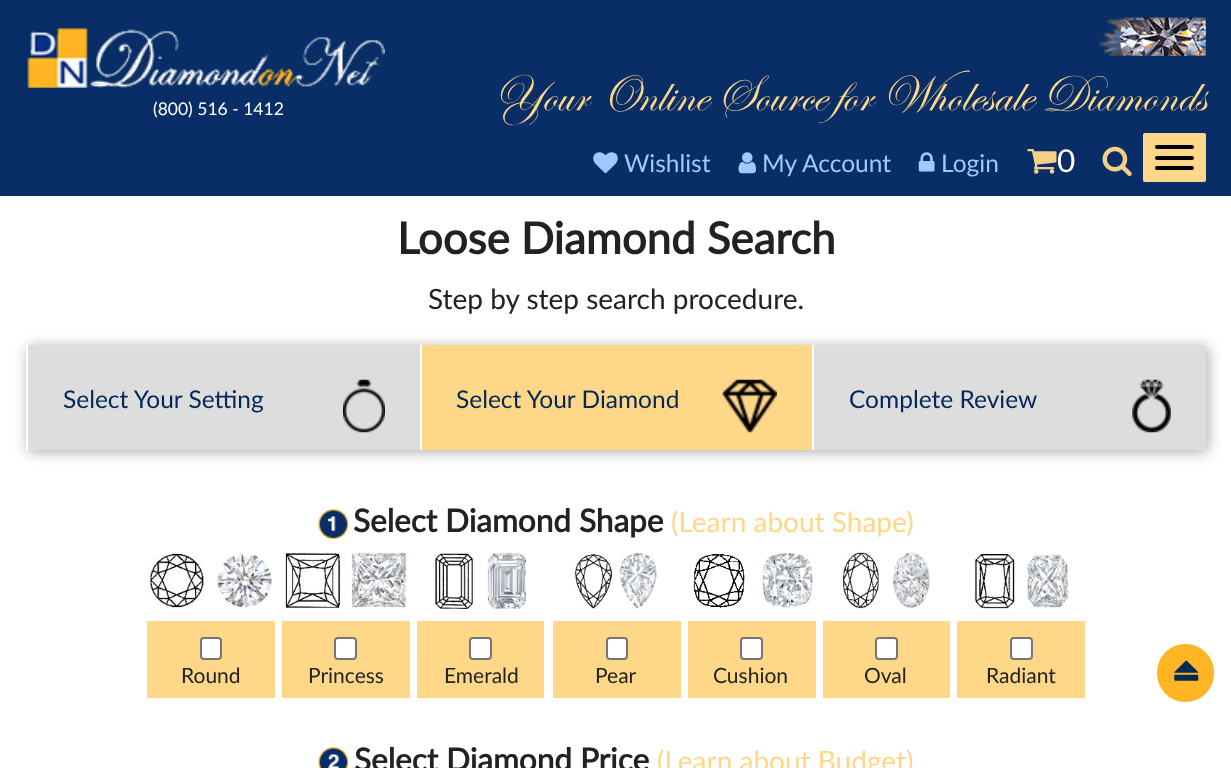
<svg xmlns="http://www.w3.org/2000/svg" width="1231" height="768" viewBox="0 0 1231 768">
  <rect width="100%" height="100%" fill="#fff"/>
  <path d="M0 0h1231v196H0z" fill="#092d67"/>
  <image x="1099" y="17" width="107" height="39" href="img/1.png"/>
  <image x="27" y="27" width="358" height="61" href="img/2.png"/>
  <image x="593" y="152" width="25" height="22" href="img/3.png"/>
  <image x="738" y="152" width="18" height="22" href="img/4.png"/>
  <image x="918" y="152" width="17" height="20" href="img/5.png"/>
  <image x="1027" y="149" width="30" height="25" href="img/6.png"/>
  <image x="1102" y="146" width="30" height="30" href="img/7.png"/>
  <rect x="1143" y="133" width="63" height="49" rx="2" fill="#ffd788"/>
  <rect x="1155" y="145" width="39" height="4" rx="2" fill="#000"/>
  <rect x="1155" y="156" width="39" height="4" rx="2" fill="#000"/>
  <rect x="1155" y="166" width="39" height="4" rx="2" fill="#000"/>
  <path d="M28 347h1180v105H28z" fill="#adabab" filter="blur(7px)"/>
  <path d="M28 345h392v105H28z" fill="#ddd"/>
  <path d="M26 345h2v105H26z" fill="#fff"/>
  <image x="343" y="379" width="42" height="54" href="img/8.png"/>
  <path d="M422 345h390v105H422z" fill="#ffd788"/>
  <path d="M420 345h2v105H420z" fill="#fff"/>
  <image x="722" y="379" width="55" height="54" href="img/9.png"/>
  <path d="M814 345h392v105H814z" fill="#ddd"/>
  <path d="M812 345h2v105H812z" fill="#fff"/>
  <image x="1132" y="379" width="39" height="54" href="img/10.png"/>
  <image x="318" y="509" width="31" height="30" href="img/11.png"/>
  <image x="148" y="552" width="124" height="57" href="img/12.png"/>
  <path d="M147 621h128v77H147z" fill="#ffd788"/>
  <rect x="201" y="638" width="20" height="21" rx="3" fill="#fff" stroke="#767676" stroke-width="2"/>
  <image x="285" y="552" width="122" height="57" href="img/13.png"/>
  <path d="M282 621h128v77H282z" fill="#ffd788"/>
  <rect x="335" y="638" width="21" height="21" rx="3" fill="#fff" stroke="#767676" stroke-width="2"/>
  <image x="434" y="552" width="92" height="57" href="img/14.png"/>
  <path d="M417 621h127v77H417z" fill="#ffd788"/>
  <rect x="470" y="638" width="21" height="21" rx="3" fill="#fff" stroke="#767676" stroke-width="2"/>
  <image x="574" y="552" width="83" height="57" href="img/15.png"/>
  <path d="M553 621h128v77H553z" fill="#ffd788"/>
  <rect x="607" y="638" width="20" height="21" rx="3" fill="#fff" stroke="#767676" stroke-width="2"/>
  <image x="693" y="553" width="120" height="55" href="img/16.png"/>
  <path d="M688 621h128v77H688z" fill="#ffd788"/>
  <rect x="741" y="638" width="21" height="21" rx="3" fill="#fff" stroke="#767676" stroke-width="2"/>
  <image x="841" y="551" width="89" height="58" href="img/17.png"/>
  <path d="M823 621h127v77H823z" fill="#ffd788"/>
  <rect x="876" y="638" width="21" height="21" rx="3" fill="#fff" stroke="#767676" stroke-width="2"/>
  <image x="973" y="553" width="96" height="56" href="img/18.png"/>
  <path d="M957 621h128v77H957z" fill="#ffd788"/>
  <rect x="1011" y="638" width="21" height="21" rx="3" fill="#fff" stroke="#767676" stroke-width="2"/>
  <image x="318" y="747" width="31" height="21" href="img/19.png"/>
  <rect x="1156" y="643" width="59" height="60" rx="29.5" fill="#ffb524" stroke="#fff" stroke-width="2"/>
  <image x="1174" y="660" width="25" height="21" href="img/20.png"/>
  <text x="153" y="115" font-family="Lato" font-size="17.5" fill="#fff">(800) 516 - 1412</text>
  <text x="495" y="110" font-family="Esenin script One" font-size="52.5" fill="#ffd788">Your Online Source for Wholesale Diamonds</text>
  <g font-family="Lato" font-size="24.5" fill="#a0caff">
    <text x="624" y="172">Wishlist</text>
    <text x="762" y="172">My Account</text>
    <text x="941" y="172">Login</text>
  </g>
  <text x="1057" y="172" font-family="Lato" font-size="31.5" fill="#fff">0</text>
  <text x="397" y="254" font-family="Lato" font-size="43.75" font-weight="bold" fill="#222">Loose Diamond Search</text>
  <text x="428" y="309" font-family="Lato" font-size="28" fill="#222">Step by step search procedure.</text>
  <g font-family="Lato" font-size="24.5" fill="#022857">
    <text x="63" y="408">Select Your Setting</text>
    <text x="456" y="408">Select Your Diamond</text>
    <text x="849" y="408">Complete Review</text>
  </g>
  <text x="353" y="532" font-family="Lato" font-size="31.5" font-weight="bold" fill="#222">Select Diamond Shape</text>
  <text x="671" y="532" font-family="Lato" font-size="28" fill="#ffd788">(Learn about Shape)</text>
  <g font-family="Lato" font-size="21" fill="#222">
    <text x="181" y="683">Round</text>
    <text x="308" y="683">Princess</text>
    <text x="444" y="683">Emerald</text>
    <text x="595" y="683">Pear</text>
    <text x="713" y="683">Cushion</text>
    <text x="864" y="683">Oval</text>
    <text x="986" y="683">Radiant</text>
  </g>
  <text x="354" y="771" font-family="Lato" font-size="31.5" font-weight="bold" fill="#222">Select Diamond Price</text>
  <text x="657" y="771" font-family="Lato" font-size="28" fill="#ffd788">(Learn about Budget)</text>
</svg>
